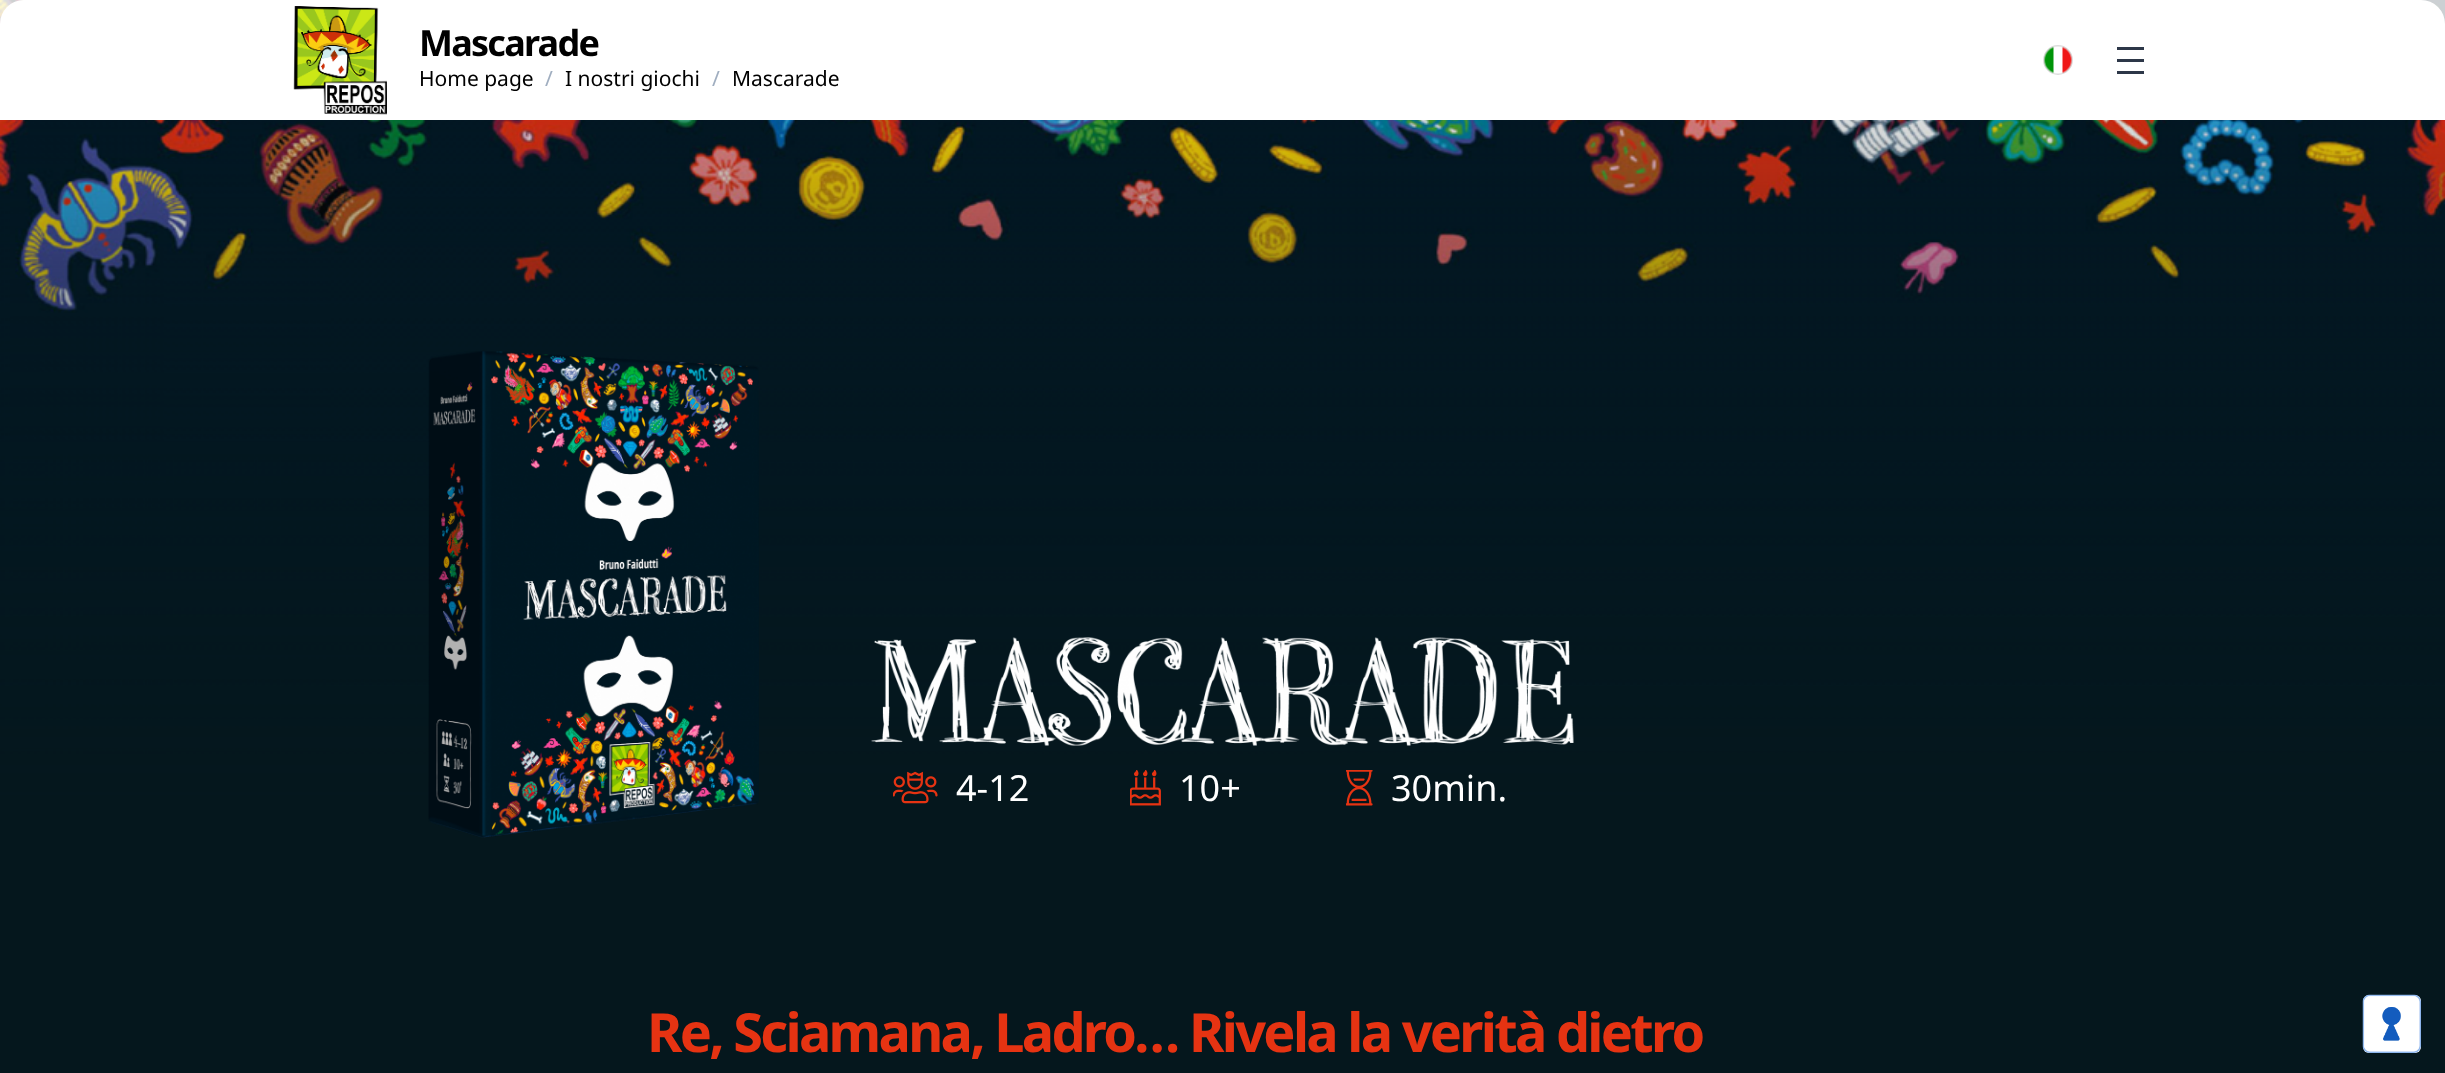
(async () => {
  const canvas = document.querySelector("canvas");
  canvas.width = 2445;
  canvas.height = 1073;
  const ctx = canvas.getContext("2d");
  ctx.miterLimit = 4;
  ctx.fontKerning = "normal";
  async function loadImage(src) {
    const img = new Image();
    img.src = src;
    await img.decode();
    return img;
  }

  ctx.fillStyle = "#05171d";
  ctx.fillRect(0, 0, 2445, 1073);
  ctx.drawImage(await loadImage("img/3.png"), 0, 0, 2445, 805);
  ctx.fillStyle = "rgba(255, 255, 255, 0.8)";
  ctx.fillRect(0, 0, 2445, 24);
  ctx.fillStyle = "#ffffff";
  ctx.beginPath();
  ctx.roundRect(0, 0, 2445, 120, [24, 24, 0, 0]);
  ctx.fill();
  ctx.drawImage(await loadImage("img/1.png"), 293, 6, 94, 109);
  ctx.beginPath();
  ctx.arc(2058, 60, 14, 0, Math.PI * 2);
  ctx.strokeStyle = "#dcdcdc";
  ctx.lineWidth = 2;
  ctx.stroke();
  ctx.drawImage(await loadImage("img/2.png"), 2044, 46, 28, 28);
  for (const [x, y, w, h, color] of [
    [2117, 59, 27, 3, "#2d3748"],
    [2117, 47, 27, 3, "#2d3748"],
    [2117, 71, 27, 3, "#2d3748"],
  ]) {
    ctx.fillStyle = color;
    ctx.fillRect(x, y, w, h);
  }
  ctx.drawImage(await loadImage("img/4.png"), 428, 351, 331, 487);
  ctx.drawImage(await loadImage("img/5.png"), 871, 637, 703, 109);
  ctx.drawImage(await loadImage("img/6.png"), 893, 771, 45, 33);
  ctx.drawImage(await loadImage("img/7.png"), 1130, 770, 31, 36);
  ctx.drawImage(await loadImage("img/8.png"), 1346, 770, 27, 36);
  ctx.fillStyle = "#ffffff";
  ctx.beginPath();
  ctx.roundRect(2363, 995, 58, 58, 6);
  ctx.fill();
  ctx.drawImage(await loadImage("img/9.png"), 2362, 994, 59, 59);
  ctx.letterSpacing = "-1.75px";
  ctx.font = "bold 36px Noto Sans";
  ctx.fillStyle = "#000000";
  ctx.fillText("Mascarade", 419, 56);
  ctx.letterSpacing = "0px";
  ctx.font = "21px Noto Sans";
  ctx.fillText("Home page", 419, 86);
  ctx.fillStyle = "#a0aec0";
  ctx.fillText("/", 545, 86);
  ctx.fillStyle = "#000000";
  ctx.fillText("I nostri giochi", 565, 86);
  ctx.fillStyle = "#a0aec0";
  ctx.fillText("/", 712, 86);
  ctx.fillStyle = "#000000";
  ctx.fillText("Mascarade", 732, 86);
  ctx.font = "36px Noto Sans";
  ctx.fillStyle = "#ffffff";
  for (const [text, x, y] of [
    ["4-12", 956, 801],
    ["10+", 1179, 801],
    ["30min.", 1391, 801],
  ]) {
    ctx.fillText(text, x, y);
  }
  ctx.letterSpacing = "-2.7px";
  ctx.font = "bold 54px Noto Sans";
  ctx.fillStyle = "#e63312";
  ctx.fillText("Re, Sciamana, Ladro… Rivela la verità dietro", 647, 1052);
})();
